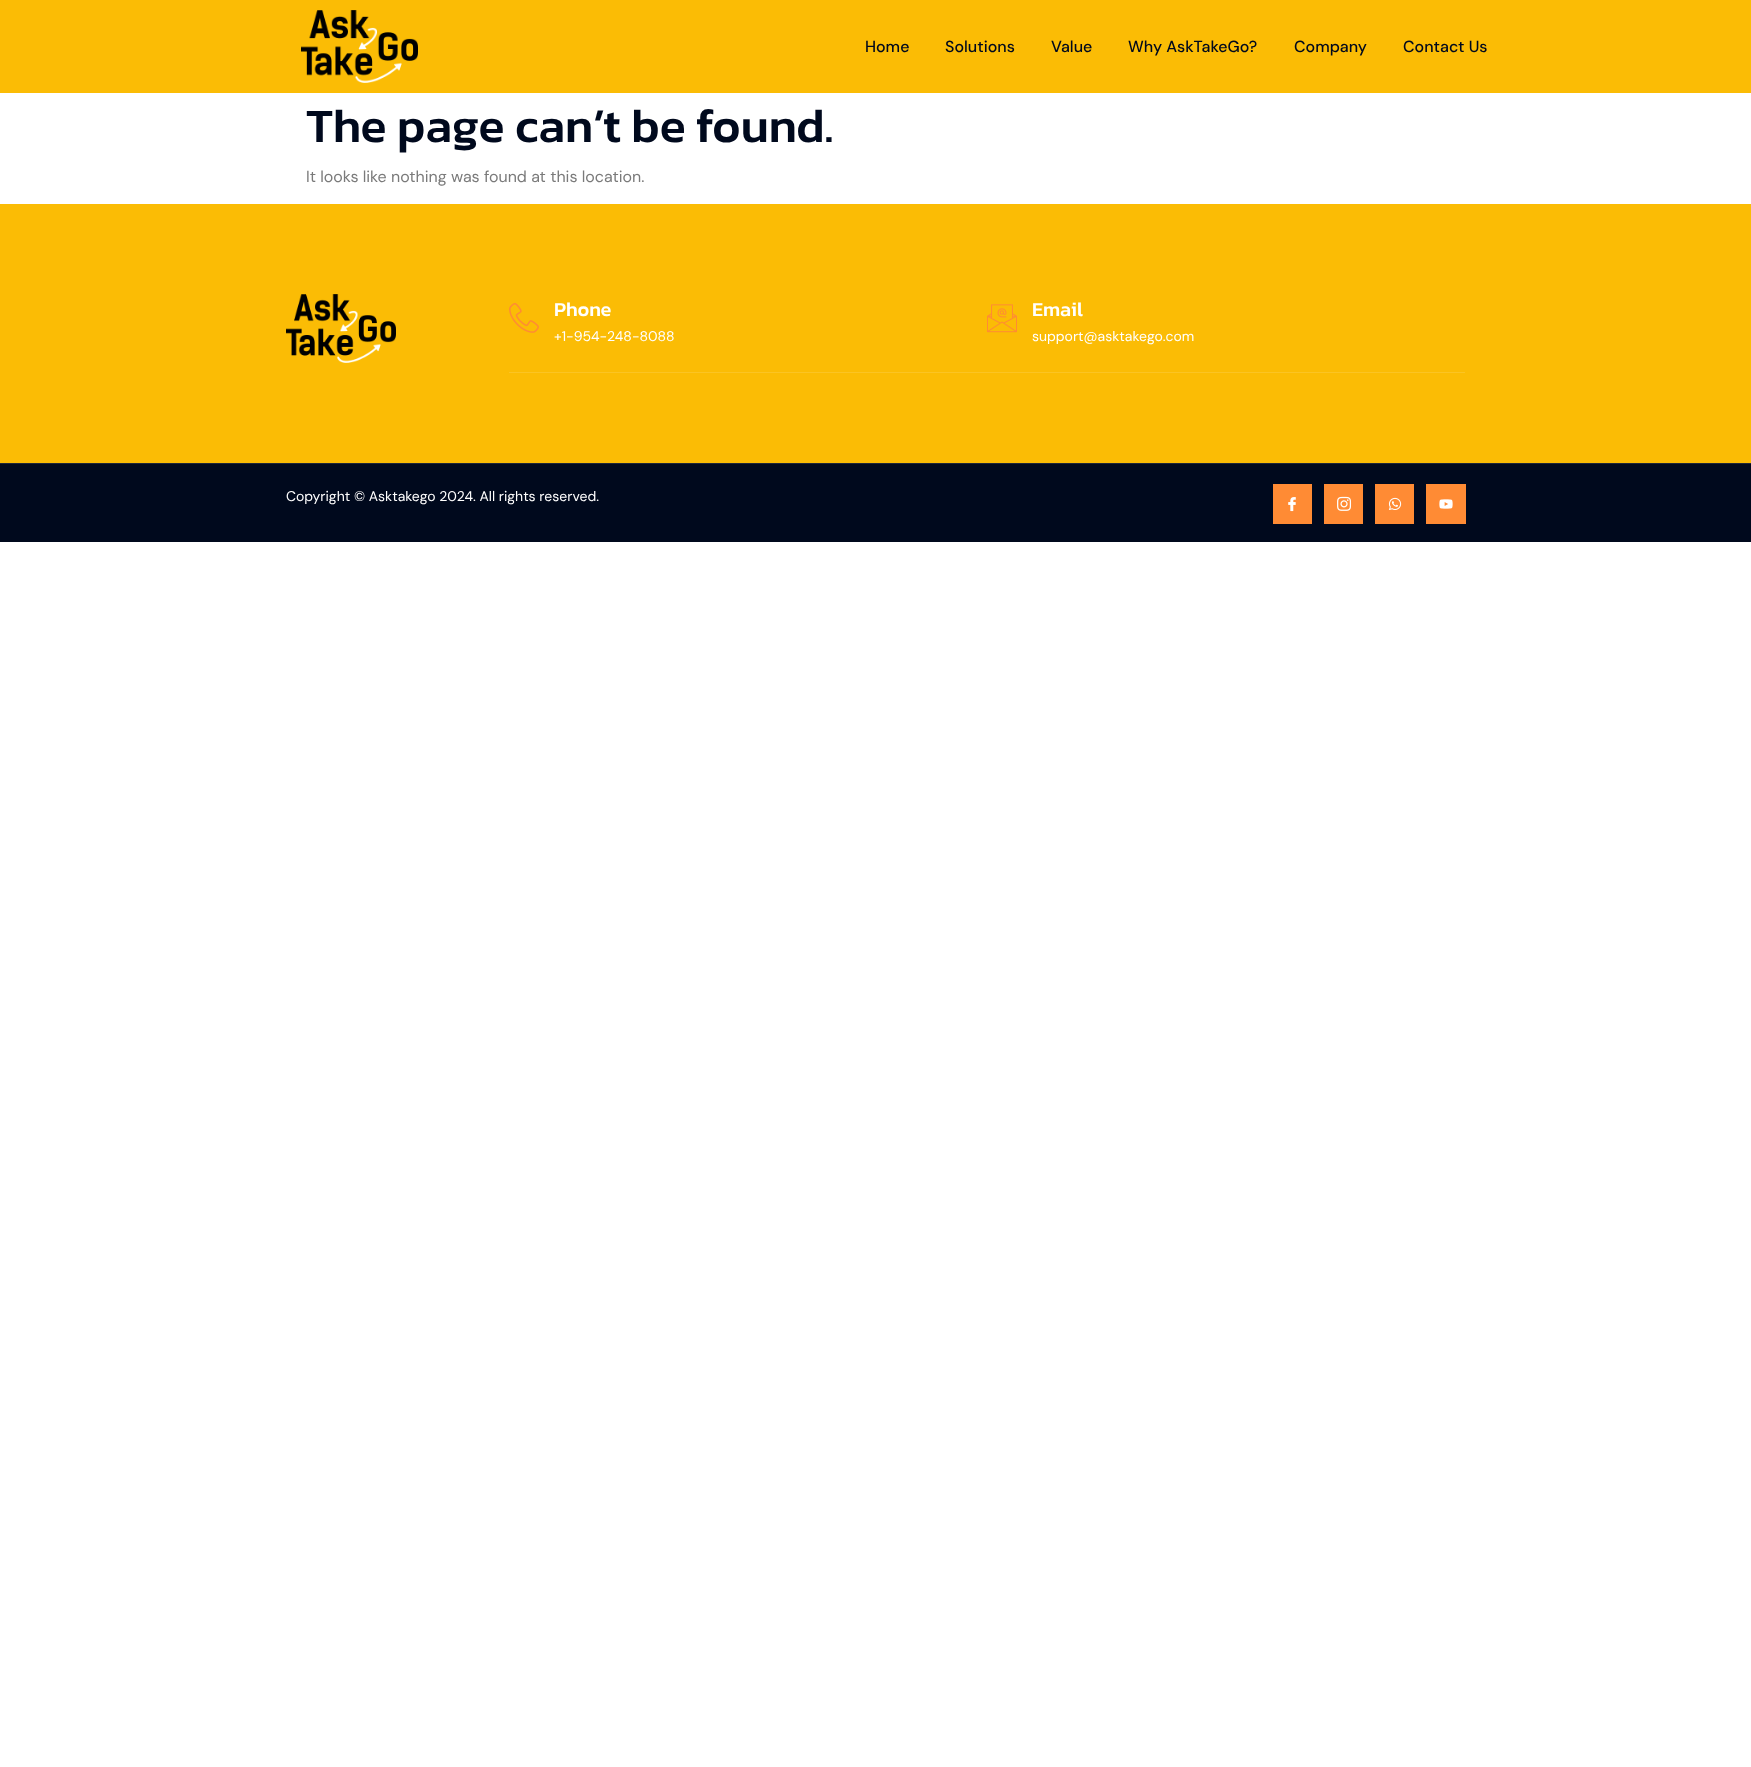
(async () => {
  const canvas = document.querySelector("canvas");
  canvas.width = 1751;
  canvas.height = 1767;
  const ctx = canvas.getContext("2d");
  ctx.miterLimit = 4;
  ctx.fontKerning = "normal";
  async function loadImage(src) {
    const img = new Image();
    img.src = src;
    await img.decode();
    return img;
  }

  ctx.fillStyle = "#ffffff";
  ctx.fillRect(0, 0, 1751, 1767);
  ctx.fillStyle = "#fbbc05";
  ctx.fillRect(0, 0, 1751, 93);
  ctx.drawImage(await loadImage("img/1.png"), 301, 10, 117, 73);
  ctx.fillRect(0, 204, 1751, 259);
  ctx.drawImage(await loadImage("img/2.png"), 286, 294, 110, 69);
  ctx.fillStyle = "#fbc423";
  ctx.fillRect(509, 372, 956, 1);
  ctx.drawImage(await loadImage("img/3.png"), 509, 303, 30, 30);
  ctx.drawImage(await loadImage("img/4.png"), 987, 304, 30, 29);
  for (const [x, y, w, h, color] of [
    [0, 464, 1751, 78, "#00091d"],
    [0, 463, 1751, 1, "#1f2738"],
    [1273, 484, 39, 40, "#ff8b34"],
  ]) {
    ctx.fillStyle = color;
    ctx.fillRect(x, y, w, h);
  }
  ctx.drawImage(await loadImage("img/5.png"), 1288, 497, 8, 15);
  ctx.fillRect(1324, 484, 39, 40);
  ctx.drawImage(await loadImage("img/6.png"), 1337, 496, 15, 15);
  ctx.fillRect(1375, 484, 39, 40);
  ctx.drawImage(await loadImage("img/7.png"), 1388, 497, 14, 13);
  ctx.fillRect(1426, 484, 40, 40);
  ctx.drawImage(await loadImage("img/8.png"), 1439, 499, 14, 10);
  ctx.font = "500 16px DM Sans";
  ctx.fillStyle = "#00091d";
  for (const [text, x, y] of [
    ["Home", 865, 52],
    ["Solutions", 945, 52],
    ["Value", 1051, 52],
    ["Why AskTakeGo?", 1128, 52],
    ["Company", 1294, 52],
    ["Contact Us", 1403, 52],
  ]) {
    ctx.fillText(text, x, y);
  }
  ctx.font = "500 48px Kanit";
  ctx.fillText("The page can’t be found.", 306, 142);
  ctx.font = "16px DM Sans";
  ctx.fillStyle = "#7a7a7a";
  ctx.fillText("It looks like nothing was found at this location.", 306, 182);
  ctx.font = "500 20px Kanit";
  ctx.fillStyle = "#ffffff";
  ctx.fillText("Phone", 554, 316);
  ctx.font = "14px DM Sans";
  ctx.fillText("+1-954-248-8088", 554, 341);
  ctx.font = "500 20px Kanit";
  ctx.fillText("Email", 1032, 316);
  ctx.font = "14px DM Sans";
  ctx.fillText("support@asktakego.com", 1032, 341);
  ctx.fillText("Copyright © Asktakego 2024. All rights reserved.", 286, 501);
})();
